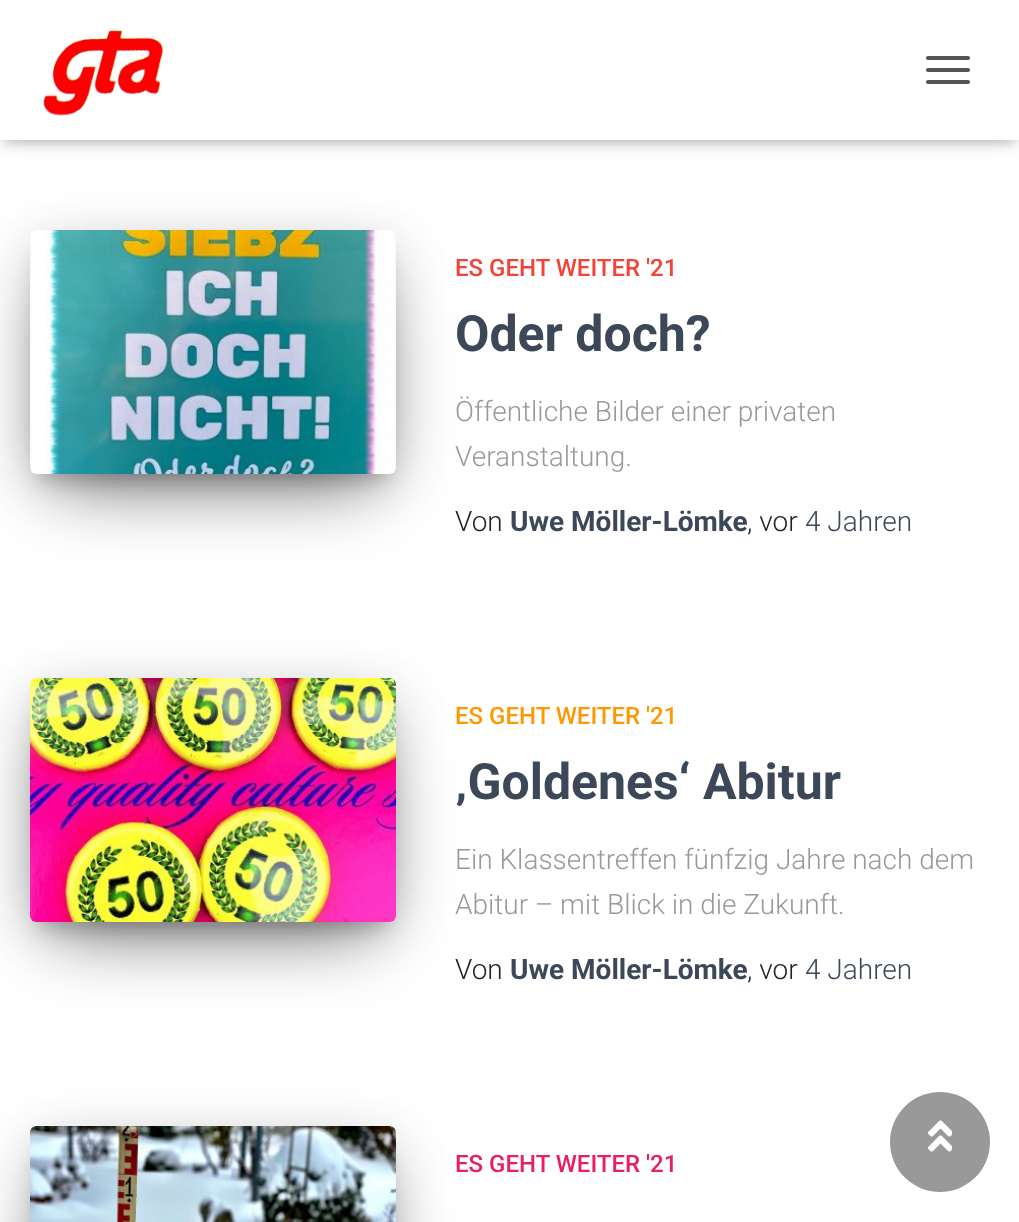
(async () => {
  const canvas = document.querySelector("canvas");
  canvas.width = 1019;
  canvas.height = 1222;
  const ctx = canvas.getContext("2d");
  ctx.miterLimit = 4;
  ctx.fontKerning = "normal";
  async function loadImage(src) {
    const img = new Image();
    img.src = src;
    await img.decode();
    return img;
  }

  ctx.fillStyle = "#ffffff";
  ctx.fillRect(0, 0, 1019, 1222);
  ctx.fillStyle = "rgba(0, 0, 0, 0.1)";
  ctx.filter = "blur(5px)";
  ctx.beginPath();
  ctx.rect(4, 12, 1012, 132);
  ctx.fill();
  ctx.filter = "none";
  ctx.fillStyle = "rgba(0, 0, 0, 0.12)";
  ctx.filter = "blur(10px)";
  ctx.beginPath();
  ctx.rect(0, 2, 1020, 140);
  ctx.fill();
  ctx.filter = "none";
  ctx.fillStyle = "rgba(0, 0, 0, 0.42)";
  ctx.filter = "blur(10px)";
  ctx.beginPath();
  ctx.rect(12, 14, 996, 116);
  ctx.fill();
  ctx.filter = "none";
  ctx.fillStyle = "#ffffff";
  ctx.fillRect(0, 0, 1019, 140);
  ctx.drawImage(await loadImage("img/1.png"), 43, 30, 121, 87);
  ctx.fillStyle = "#555555";
  ctx.beginPath();
  ctx.roundRect(926, 56, 44, 4, 2);
  ctx.fill();
  ctx.beginPath();
  ctx.roundRect(926, 68, 44, 4, 2);
  ctx.fill();
  ctx.beginPath();
  ctx.roundRect(926, 80, 44, 4, 2);
  ctx.fill();
  ctx.fillStyle = "rgba(0, 0, 0, 0.2)";
  ctx.filter = "blur(10px)";
  ctx.beginPath();
  ctx.rect(40, 256, 346, 224);
  ctx.fill();
  ctx.filter = "none";
  ctx.fillStyle = "rgba(0, 0, 0, 0.12)";
  ctx.filter = "blur(25px)";
  ctx.beginPath();
  ctx.roundRect(30, 238, 366, 244, 6);
  ctx.fill();
  ctx.filter = "none";
  ctx.fillStyle = "rgba(0, 0, 0, 0.56)";
  ctx.filter = "blur(38px)";
  ctx.beginPath();
  ctx.rect(54, 286, 318, 196);
  ctx.fill();
  ctx.filter = "none";
  ctx.drawImage(await loadImage("img/2.png"), 30, 230, 366, 244);
  ctx.fillStyle = "rgba(0, 0, 0, 0.2)";
  ctx.filter = "blur(10px)";
  ctx.beginPath();
  ctx.rect(40, 704, 346, 224);
  ctx.fill();
  ctx.filter = "none";
  ctx.fillStyle = "rgba(0, 0, 0, 0.12)";
  ctx.filter = "blur(25px)";
  ctx.beginPath();
  ctx.roundRect(30, 686, 366, 244, 6);
  ctx.fill();
  ctx.filter = "none";
  ctx.fillStyle = "rgba(0, 0, 0, 0.56)";
  ctx.filter = "blur(38px)";
  ctx.beginPath();
  ctx.rect(54, 734, 318, 196);
  ctx.fill();
  ctx.filter = "none";
  ctx.drawImage(await loadImage("img/3.png"), 30, 678, 366, 244);
  ctx.fillStyle = "rgba(0, 0, 0, 0.2)";
  ctx.filter = "blur(10px)";
  ctx.beginPath();
  ctx.rect(40, 1152, 346, 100);
  ctx.fill();
  ctx.filter = "none";
  ctx.fillStyle = "rgba(0, 0, 0, 0.12)";
  ctx.filter = "blur(25px)";
  ctx.beginPath();
  ctx.roundRect(30, 1134, 366, 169, 6);
  ctx.fill();
  ctx.filter = "none";
  ctx.fillStyle = "rgba(0, 0, 0, 0.56)";
  ctx.filter = "blur(38px)";
  ctx.beginPath();
  ctx.rect(54, 1182, 318, 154);
  ctx.fill();
  ctx.filter = "none";
  ctx.drawImage(await loadImage("img/4.png"), 30, 1126, 366, 96);
  ctx.fillStyle = "#999999";
  ctx.beginPath();
  ctx.arc(940, 1142, 50, 0, Math.PI * 2);
  ctx.fill();
  ctx.drawImage(await loadImage("img/5.png"), 928, 1120, 24, 32);
  ctx.font = "500 24px Roboto";
  ctx.fillStyle = "#f44336";
  ctx.fillText("ES GEHT WEITER '21", 455, 276);
  ctx.font = "bold 50px Roboto";
  ctx.fillStyle = "#3c4858";
  ctx.fillText("Oder doch?", 455, 351);
  ctx.font = "300 28px Roboto";
  ctx.fillStyle = "#999999";
  ctx.fillText("Öffentliche Bilder einer privaten", 455, 421);
  ctx.fillText("Veranstaltung.", 455, 466);
  ctx.fillStyle = "#212121";
  ctx.fillText("Von", 455, 531);
  ctx.font = "bold 28px Roboto";
  ctx.fillStyle = "#3c4858";
  ctx.fillText("Uwe Möller-Lömke", 510, 531);
  ctx.font = "300 28px Roboto";
  ctx.fillStyle = "#212121";
  ctx.fillText(", vor", 747, 531);
  ctx.fillStyle = "#3c4858";
  ctx.fillText("4 Jahren", 805, 531);
  ctx.font = "500 24px Roboto";
  ctx.fillStyle = "#ff9800";
  ctx.fillText("ES GEHT WEITER '21", 455, 724);
  ctx.font = "bold 50px Roboto";
  ctx.fillStyle = "#3c4858";
  ctx.fillText("‚Goldenes‘ Abitur", 455, 799);
  ctx.font = "300 28px Roboto";
  ctx.fillStyle = "#999999";
  ctx.fillText("Ein Klassentreffen fünfzig Jahre nach dem", 455, 869);
  ctx.fillText("Abitur – mit Blick in die Zukunft.", 455, 914);
  ctx.fillStyle = "#212121";
  ctx.fillText("Von", 455, 979);
  ctx.font = "bold 28px Roboto";
  ctx.fillStyle = "#3c4858";
  ctx.fillText("Uwe Möller-Lömke", 510, 979);
  ctx.font = "300 28px Roboto";
  ctx.fillStyle = "#212121";
  ctx.fillText(", vor", 747, 979);
  ctx.fillStyle = "#3c4858";
  ctx.fillText("4 Jahren", 805, 979);
  ctx.font = "500 24px Roboto";
  ctx.fillStyle = "#e91e63";
  ctx.fillText("ES GEHT WEITER '21", 455, 1172);
})();
